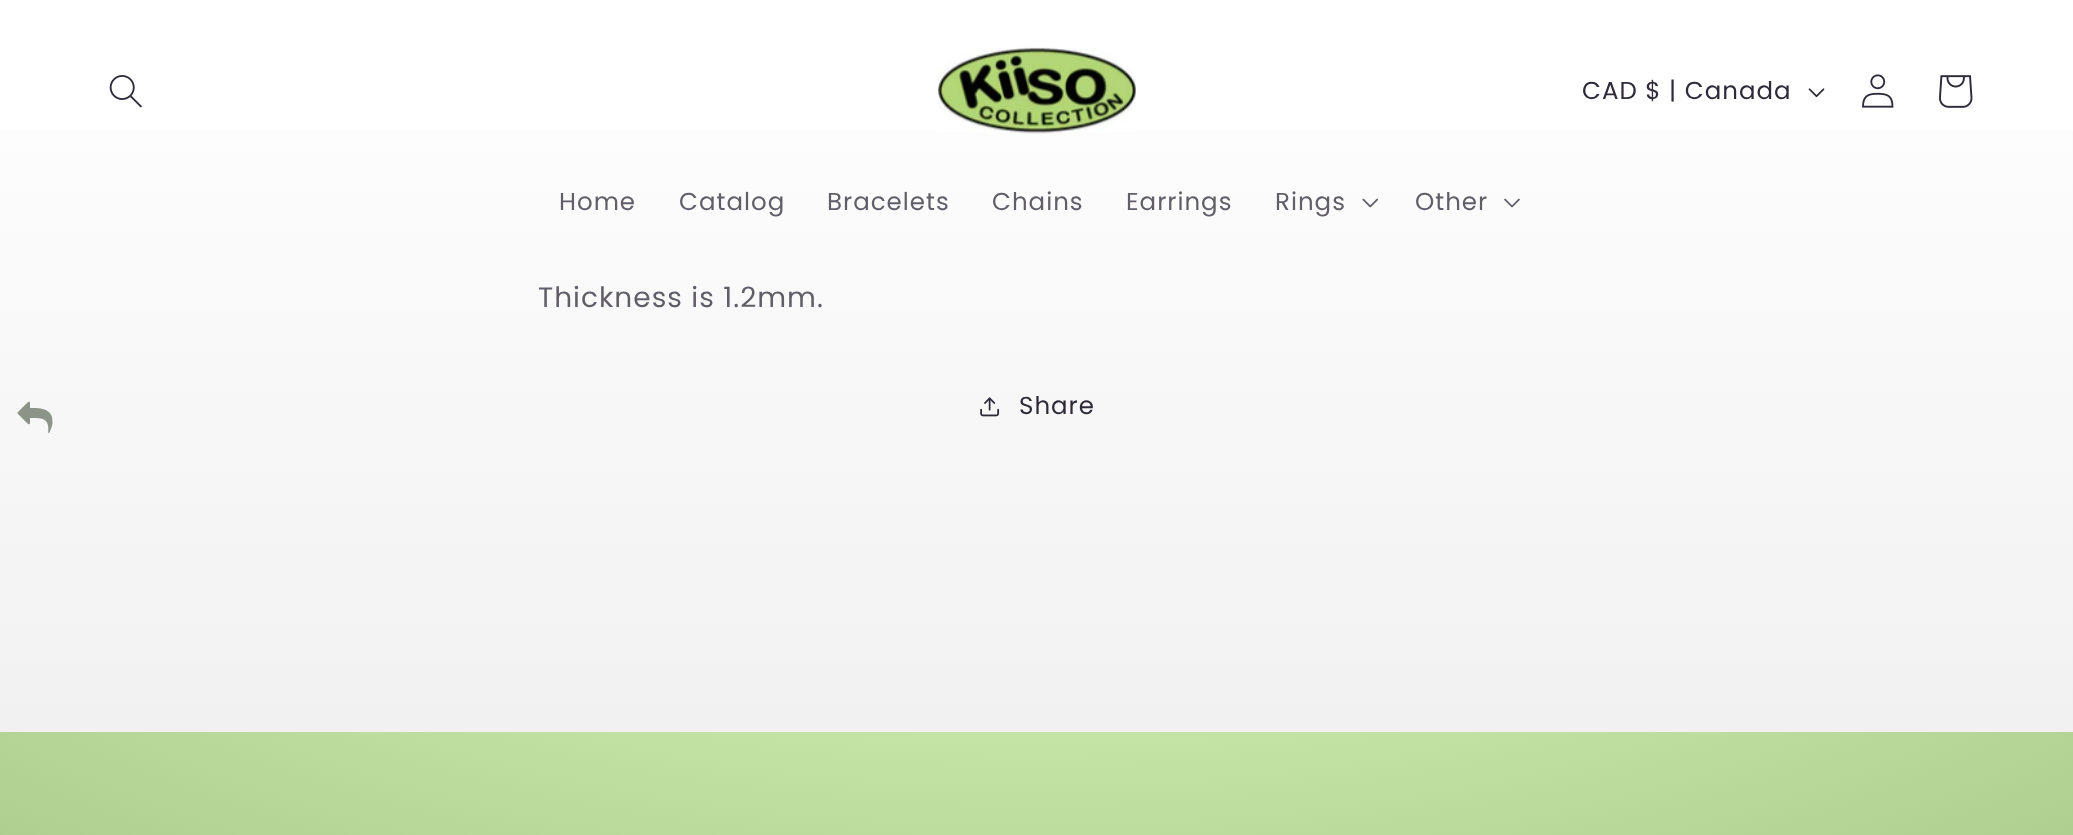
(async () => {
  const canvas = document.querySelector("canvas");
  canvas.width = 2073;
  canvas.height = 835;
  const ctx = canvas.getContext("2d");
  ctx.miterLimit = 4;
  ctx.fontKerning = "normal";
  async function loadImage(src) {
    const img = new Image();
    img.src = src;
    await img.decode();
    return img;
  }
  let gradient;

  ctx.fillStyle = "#ffffff";
  ctx.fillRect(0, 0, 2073, 835);
  gradient = ctx.createLinearGradient(1037, 0, 1037, 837);
  gradient.addColorStop(0, "#ffffff");
  gradient.addColorStop(1, "#efefef");
  ctx.fillStyle = gradient;
  ctx.fillRect(0, 273, 2073, 459);
  ctx.fillRect(0, 131, 2073, 142);
  ctx.drawImage(await loadImage("img/1.png"), 109, 75, 33, 33);
  ctx.drawImage(await loadImage("img/2.png"), 938, 47, 198, 87);
  ctx.drawImage(await loadImage("img/3.png"), 1808, 88, 17, 10);
  ctx.drawImage(await loadImage("img/4.png"), 1862, 74, 32, 34);
  ctx.drawImage(await loadImage("img/5.png"), 1939, 75, 34, 33);
  ctx.drawImage(await loadImage("img/6.png"), 1362, 198, 17, 10);
  ctx.drawImage(await loadImage("img/7.png"), 1504, 198, 16, 10);
  ctx.drawImage(await loadImage("img/8.png"), 17, 401, 36, 32);
  ctx.drawImage(await loadImage("img/9.png"), 980, 397, 20, 20);
  gradient = ctx.createRadialGradient(1037, 1036.87, 0, 1037, 1036.87, 1466);
  gradient.addColorStop(0.09, "#e1f4d1");
  gradient.addColorStop(0.47, "#c6e7a8");
  gradient.addColorStop(1, "#aecf8f");
  ctx.fillStyle = gradient;
  ctx.beginPath();
  ctx.rect(0, 732, 2073, 103);
  ctx.save();
  ctx.clip();
  ctx.scale(1, 591 / 1466);
  ctx.fillRect(0, 0, 2073, 2072);
  ctx.restore();
  ctx.letterSpacing = "1px";
  ctx.font = "24.5px Poppins";
  ctx.fillStyle = "#2e2a39";
  ctx.fillText("CAD $ | Canada", 1582, 99);
  ctx.fillStyle = "#615e69";
  for (const [text, x, y] of [
    ["Home", 559, 210],
    ["Catalog", 679, 210],
    ["Bracelets", 827, 210],
    ["Chains", 992, 210],
    ["Earrings", 1126, 210],
    ["Rings", 1275, 210],
    ["Other", 1415, 210],
  ]) {
    ctx.fillText(text, x, y);
  }
  ctx.font = "28px Poppins";
  ctx.fillText("Thickness is 1.2mm.", 538, 307);
  ctx.font = "24.5px Poppins";
  ctx.fillStyle = "#2e2a39";
  ctx.fillText("Share", 1019, 414);
})();
